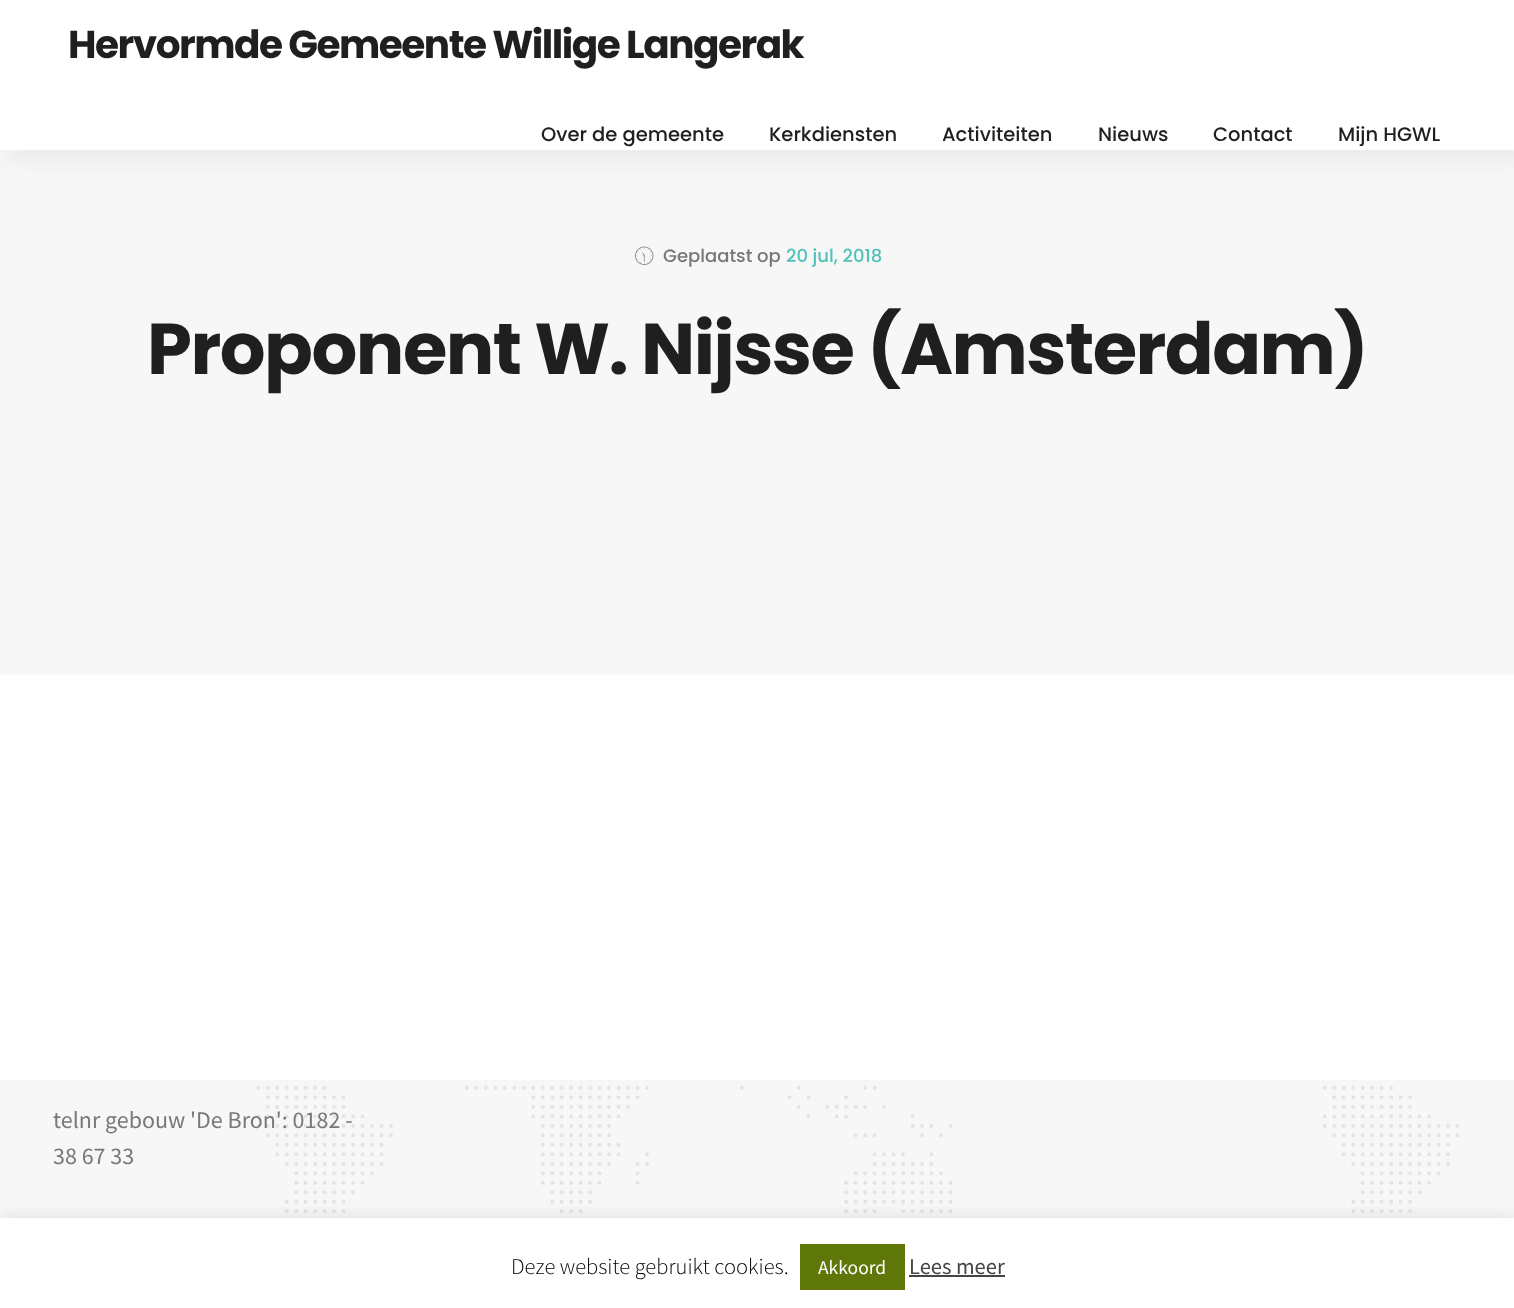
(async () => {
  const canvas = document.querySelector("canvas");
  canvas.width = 1514;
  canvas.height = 1308;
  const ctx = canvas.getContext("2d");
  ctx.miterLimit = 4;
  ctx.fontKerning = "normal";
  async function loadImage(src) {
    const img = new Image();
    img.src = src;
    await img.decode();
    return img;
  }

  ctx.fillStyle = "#f7f7f7";
  ctx.fillRect(0, 0, 1514, 1308);
  ctx.fillStyle = "rgba(31, 31, 31, 0.07)";
  ctx.filter = "blur(11px)";
  ctx.beginPath();
  ctx.rect(8, 8, 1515, 150);
  ctx.fill();
  ctx.filter = "none";
  ctx.fillStyle = "#ffffff";
  ctx.fillRect(0, 0, 1514, 150);
  ctx.fillStyle = "rgba(255, 255, 255, 0.2)";
  ctx.fillRect(0, 150, 1514, 1);
  ctx.drawImage(await loadImage("img/1.png"), 635, 246, 19, 19);
  ctx.fillStyle = "#ffffff";
  ctx.fillRect(0, 675, 1514, 405);
  ctx.drawImage(await loadImage("img/2.png"), 248, 1080, 1212, 133);
  ctx.fillStyle = "rgba(172, 171, 171, 0.3)";
  ctx.filter = "blur(7.5px)";
  ctx.beginPath();
  ctx.rect(0, 1217, 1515, 90);
  ctx.fill();
  ctx.filter = "none";
  for (const [x, y, w, h, color] of [
    [0, 1218, 1514, 90, "#ffffff"],
    [800, 1244, 105, 46, "#5e7708"],
    [909, 1275, 96, 2, "#444444"],
  ]) {
    ctx.fillStyle = color;
    ctx.fillRect(x, y, w, h);
  }
  ctx.letterSpacing = "-1.5px";
  ctx.font = "bold 39px Poppins";
  ctx.fillStyle = "#1f1f1f";
  ctx.fillText("Hervormde Gemeente Willige Langerak", 68, 58);
  ctx.letterSpacing = "0px";
  ctx.font = "500 19.5px Poppins";
  for (const [text, x, y] of [
    ["Over de gemeente", 541, 141],
    ["Kerkdiensten", 769, 141],
    ["Activiteiten", 942, 141],
    ["Nieuws", 1098, 141],
    ["Contact", 1213, 141],
    ["Mijn HGWL", 1338, 141],
  ]) {
    ctx.fillText(text, x, y);
  }
  ctx.font = "500 18px Poppins";
  ctx.fillStyle = "#787878";
  ctx.fillText("Geplaatst op", 663, 262);
  ctx.fillStyle = "#4fc2b8";
  ctx.fillText("20 jul, 2018", 786, 262);
  ctx.letterSpacing = "-1.5px";
  ctx.font = "bold 72px Poppins";
  ctx.fillStyle = "#1f1f1f";
  ctx.fillText("Proponent W. Nijsse (Amsterdam)", 147, 374);
  ctx.letterSpacing = "0px";
  ctx.font = "24px Source Sans Pro";
  ctx.fillStyle = "#787878";
  ctx.fillText("telnr gebouw 'De Bron': 0182 -", 53, 1128);
  ctx.fillText("38 67 33", 53, 1164);
  ctx.font = "300 22.5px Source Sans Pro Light";
  ctx.fillStyle = "#000000";
  ctx.fillText("Deze website gebruikt cookies.", 511, 1274);
  ctx.font = "19.5px Source Sans Pro";
  ctx.fillStyle = "#ffffff";
  ctx.fillText("Akkoord", 818, 1274);
  ctx.font = "22.5px Source Sans Pro";
  ctx.fillStyle = "#444444";
  ctx.fillText("Lees meer", 909, 1274);
})();
